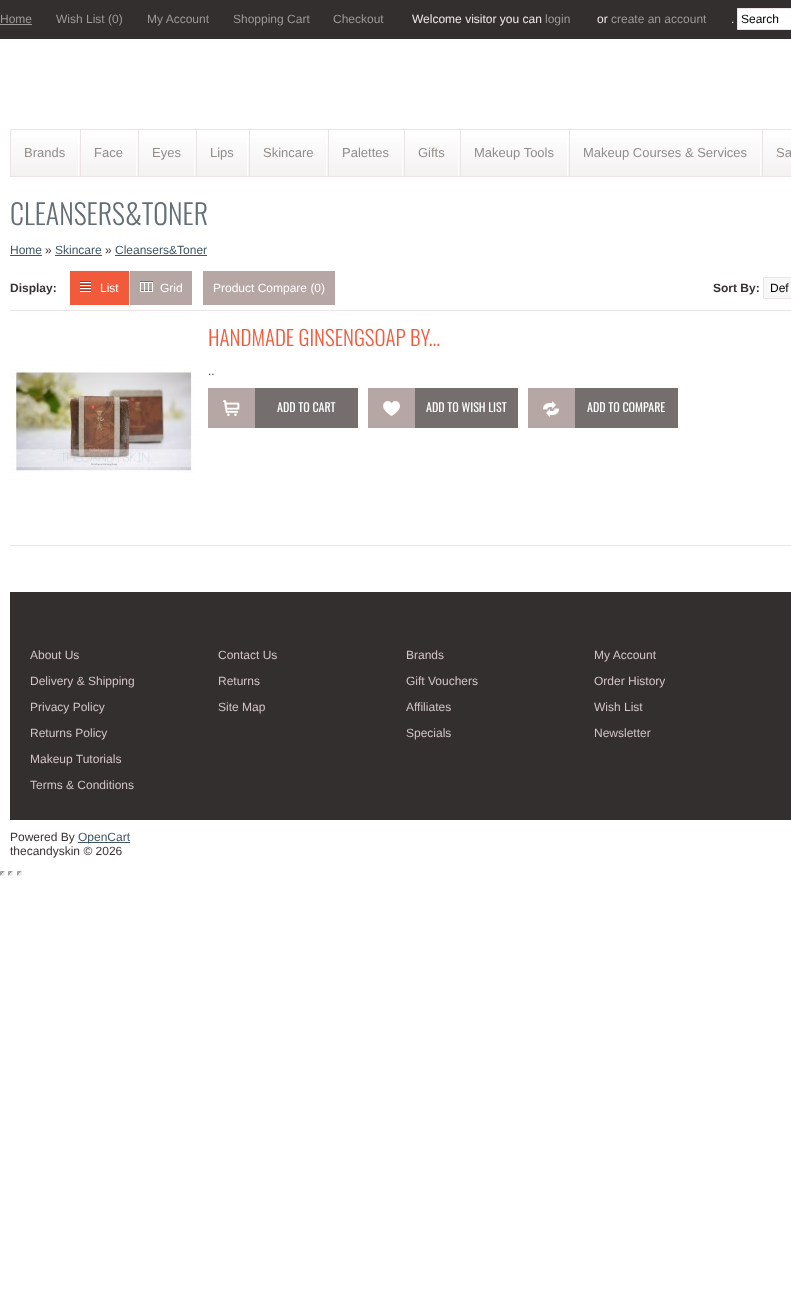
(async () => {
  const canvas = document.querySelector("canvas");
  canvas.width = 791;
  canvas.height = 1313;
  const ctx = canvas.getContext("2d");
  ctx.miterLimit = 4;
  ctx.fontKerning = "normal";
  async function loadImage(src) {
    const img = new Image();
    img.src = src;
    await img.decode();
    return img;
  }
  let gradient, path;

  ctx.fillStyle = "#ffffff";
  ctx.fillRect(0, 0, 791, 1313);
  ctx.fillStyle = "#332f2e";
  ctx.fillRect(0, 0, 791, 39);
  ctx.fillStyle = "#9e9999";
  ctx.fillRect(0, 24, 32, 1);
  ctx.fillStyle = "#ffffff";
  ctx.beginPath();
  ctx.rect(737.5, 8.5, 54, 21);
  ctx.fill();
  ctx.strokeStyle = "#eae5e4";
  ctx.stroke();
  gradient = ctx.createLinearGradient(500, 130, 500, 176);
  gradient.addColorStop(0, "#ffffff");
  gradient.addColorStop(1, "#f4f1f1");
  ctx.fillStyle = gradient;
  ctx.fillRect(11, 138, 780, 38);
  ctx.strokeRect(10.5, 129.5, 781, 47);
  for (const [x, y, w, h, color] of [
    [80, 130, 1, 46, "#eae5e4"],
    [78, 130, 1, 46, "#ffffff"],
    [138, 130, 1, 46, "#eae5e4"],
    [136, 130, 1, 46, "#ffffff"],
    [196, 130, 1, 46, "#eae5e4"],
    [194, 130, 1, 46, "#ffffff"],
    [249, 130, 1, 46, "#eae5e4"],
    [247, 130, 1, 46, "#ffffff"],
    [328, 130, 1, 46, "#eae5e4"],
    [326, 130, 1, 46, "#ffffff"],
    [404, 130, 1, 46, "#eae5e4"],
    [402, 130, 1, 46, "#ffffff"],
    [460, 130, 1, 46, "#eae5e4"],
    [458, 130, 1, 46, "#ffffff"],
    [569, 130, 1, 46, "#eae5e4"],
    [567, 130, 1, 46, "#ffffff"],
    [762, 130, 1, 46, "#eae5e4"],
    [760, 130, 1, 46, "#ffffff"],
    [10, 255, 32, 1, "#3f5563"],
    [55, 255, 47, 1, "#3f5563"],
    [115, 255, 92, 1, "#3f5563"],
    [10, 310, 781, 1, "#eae5e4"],
    [70, 271, 59, 34, "#f15a3b"],
  ]) {
    ctx.fillStyle = color;
    ctx.fillRect(x, y, w, h);
  }
  ctx.drawImage(await loadImage("img/1.png"), 80, 281, 11, 11);
  ctx.fillStyle = "#b6a7a4";
  ctx.fillRect(130, 271, 62, 34);
  ctx.drawImage(await loadImage("img/2.png"), 140, 281, 13, 11);
  ctx.fillRect(203, 271, 132, 34);
  ctx.fillStyle = "#f8f8f8";
  ctx.beginPath();
  ctx.rect(763.5, 277.5, 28, 21);
  ctx.fill();
  ctx.stroke();
  ctx.drawImage(await loadImage("img/3.png"), 10, 321, 188, 204);
  ctx.fillStyle = "#746e6e";
  ctx.fillRect(255, 388, 103, 40);
  ctx.fillStyle = "#b6a7a4";
  ctx.fillRect(208, 388, 47, 40);
  ctx.drawImage(await loadImage("img/4.png"), 223, 400, 17, 16);
  ctx.fillStyle = "#746e6e";
  ctx.fillRect(415, 388, 103, 40);
  ctx.fillStyle = "#b6a7a4";
  ctx.fillRect(368, 388, 47, 40);
  ctx.drawImage(await loadImage("img/5.png"), 383, 401, 17, 15);
  ctx.fillStyle = "#746e6e";
  ctx.fillRect(575, 388, 103, 40);
  ctx.fillStyle = "#b6a7a4";
  ctx.fillRect(528, 388, 47, 40);
  ctx.drawImage(await loadImage("img/6.png"), 543, 401, 16, 16);
  for (const [x, y, w, h, color] of [
    [10, 545, 781, 1, "#eae5e4"],
    [10, 592, 781, 228, "#332f2e"],
    [78, 842, 52, 1, "#3f5563"],
  ]) {
    ctx.fillStyle = color;
    ctx.fillRect(x, y, w, h);
  }
  ctx.fillStyle = "#9f9f9f";
  path = new Path2D("M0 871H5L3 873H2Z");
  ctx.fill(path);
  ctx.fillStyle = "#eeeeee";
  path = new Path2D("M5 871V876L3 874V873Z");
  ctx.fill(path);
  path = new Path2D("M5 876H0L2 874H3Z");
  ctx.fill(path);
  ctx.fillStyle = "#9f9f9f";
  path = new Path2D("M0 876V871L2 873V874ZM8 871H13L11 873H10Z");
  ctx.fill(path);
  ctx.fillStyle = "#eeeeee";
  path = new Path2D("M13 871V876L11 874V873Z");
  ctx.fill(path);
  path = new Path2D("M13 876H8L10 874H11Z");
  ctx.fill(path);
  ctx.fillStyle = "#9f9f9f";
  path = new Path2D("M8 876V871L10 873V874ZM17 871H22L20 873H19Z");
  ctx.fill(path);
  ctx.fillStyle = "#eeeeee";
  path = new Path2D("M22 871V876L20 874V873Z");
  ctx.fill(path);
  path = new Path2D("M22 876H17L19 874H20Z");
  ctx.fill(path);
  ctx.fillStyle = "#9f9f9f";
  path = new Path2D("M17 876V871L19 873V874Z");
  ctx.fill(path);
  ctx.font = "12px Liberation Sans";
  ctx.fillStyle = "#9e9999";
  for (const [text, x, y] of [
    ["Home", 0, 23],
    ["Wish List (0)", 56, 23],
    ["My Account", 147, 23],
    ["Shopping Cart", 233, 23],
    ["Checkout", 333, 23],
  ]) {
    ctx.fillText(text, x, y);
  }
  ctx.fillStyle = "#f0e7e7";
  ctx.fillText("Welcome visitor you can", 412, 23);
  ctx.fillStyle = "#9e9999";
  ctx.fillText("login", 545, 23);
  ctx.fillStyle = "#f0e7e7";
  ctx.fillText("or", 597, 23);
  ctx.fillStyle = "#9e9999";
  ctx.fillText("create an account", 611, 23);
  ctx.fillStyle = "#f0e7e7";
  ctx.fillText(".", 731, 23);
  ctx.fillStyle = "#000000";
  ctx.fillText("Search", 741, 23);
  ctx.font = "13px Liberation Sans";
  ctx.fillStyle = "#918d8b";
  for (const [text, x, y] of [
    ["Brands", 24, 157],
    ["Face", 94, 157],
    ["Eyes", 152, 157],
    ["Lips", 210, 157],
    ["Skincare", 263, 157],
    ["Palettes", 342, 157],
    ["Gifts", 418, 157],
    ["Makeup Tools", 474, 157],
    ["Makeup Courses & Services", 583, 157],
    ["Sa", 776, 157],
  ]) {
    ctx.fillText(text, x, y);
  }
  ctx.font = "300 28px Oswald";
  ctx.fillStyle = "#636e75";
  ctx.fillText("CLEANSERS&TONER", 10, 225);
  ctx.font = "12px Liberation Sans";
  ctx.fillStyle = "#3f5563";
  ctx.fillText("Home", 10, 254);
  ctx.fillStyle = "#393232";
  ctx.fillText("»", 45, 254);
  ctx.fillStyle = "#3f5563";
  ctx.fillText("Skincare", 55, 254);
  ctx.fillStyle = "#393232";
  ctx.fillText("»", 105, 254);
  ctx.fillStyle = "#3f5563";
  ctx.fillText("Cleansers&Toner", 115, 254);
  ctx.font = "bold 12px Liberation Sans";
  ctx.fillStyle = "#393232";
  ctx.fillText("Display:", 10, 292);
  ctx.font = "12px Liberation Sans";
  ctx.fillStyle = "#ffffff";
  for (const [text, x, y] of [
    ["List", 100, 292],
    ["Grid", 160, 292],
    ["Product Compare (0)", 213, 292],
  ]) {
    ctx.fillText(text, x, y);
  }
  ctx.font = "bold 12px Liberation Sans";
  ctx.fillStyle = "#393232";
  ctx.fillText("Sort By:", 713, 292);
  ctx.font = "12px Liberation Sans";
  ctx.fillStyle = "#000000";
  ctx.fillText("Def", 770, 292);
  ctx.font = "300 21px Oswald";
  ctx.fillStyle = "#f15a3b";
  ctx.fillText("HANDMADE GINSENGSOAP BY...", 208, 346);
  ctx.font = "12px Liberation Sans";
  ctx.fillStyle = "#393232";
  ctx.fillText("..", 208, 375);
  ctx.font = "12px Oswald";
  ctx.fillStyle = "#ffffff";
  for (const [text, x, y] of [
    ["ADD TO CART", 277, 412],
    ["ADD TO WISH LIST", 426, 412],
    ["ADD TO COMPARE", 587, 412],
  ]) {
    ctx.fillText(text, x, y);
  }
  ctx.font = "12px Liberation Sans";
  ctx.fillStyle = "#d1c5c5";
  for (const [text, x, y] of [
    ["About Us", 30, 659],
    ["Delivery & Shipping", 30, 685],
    ["Privacy Policy", 30, 711],
    ["Returns Policy", 30, 737],
    ["Makeup Tutorials", 30, 763],
    ["Terms & Conditions", 30, 789],
    ["Contact Us", 218, 659],
    ["Returns", 218, 685],
    ["Site Map", 218, 711],
    ["Brands", 406, 659],
    ["Gift Vouchers", 406, 685],
    ["Affiliates", 406, 711],
    ["Specials", 406, 737],
    ["My Account", 594, 659],
    ["Order History", 594, 685],
    ["Wish List", 594, 711],
    ["Newsletter", 594, 737],
  ]) {
    ctx.fillText(text, x, y);
  }
  ctx.fillStyle = "#393232";
  ctx.fillText("Powered By", 10, 841);
  ctx.fillStyle = "#3f5563";
  ctx.fillText("OpenCart", 78, 841);
  ctx.fillStyle = "#393232";
  ctx.fillText("thecandyskin © 2026", 10, 855);
})();
